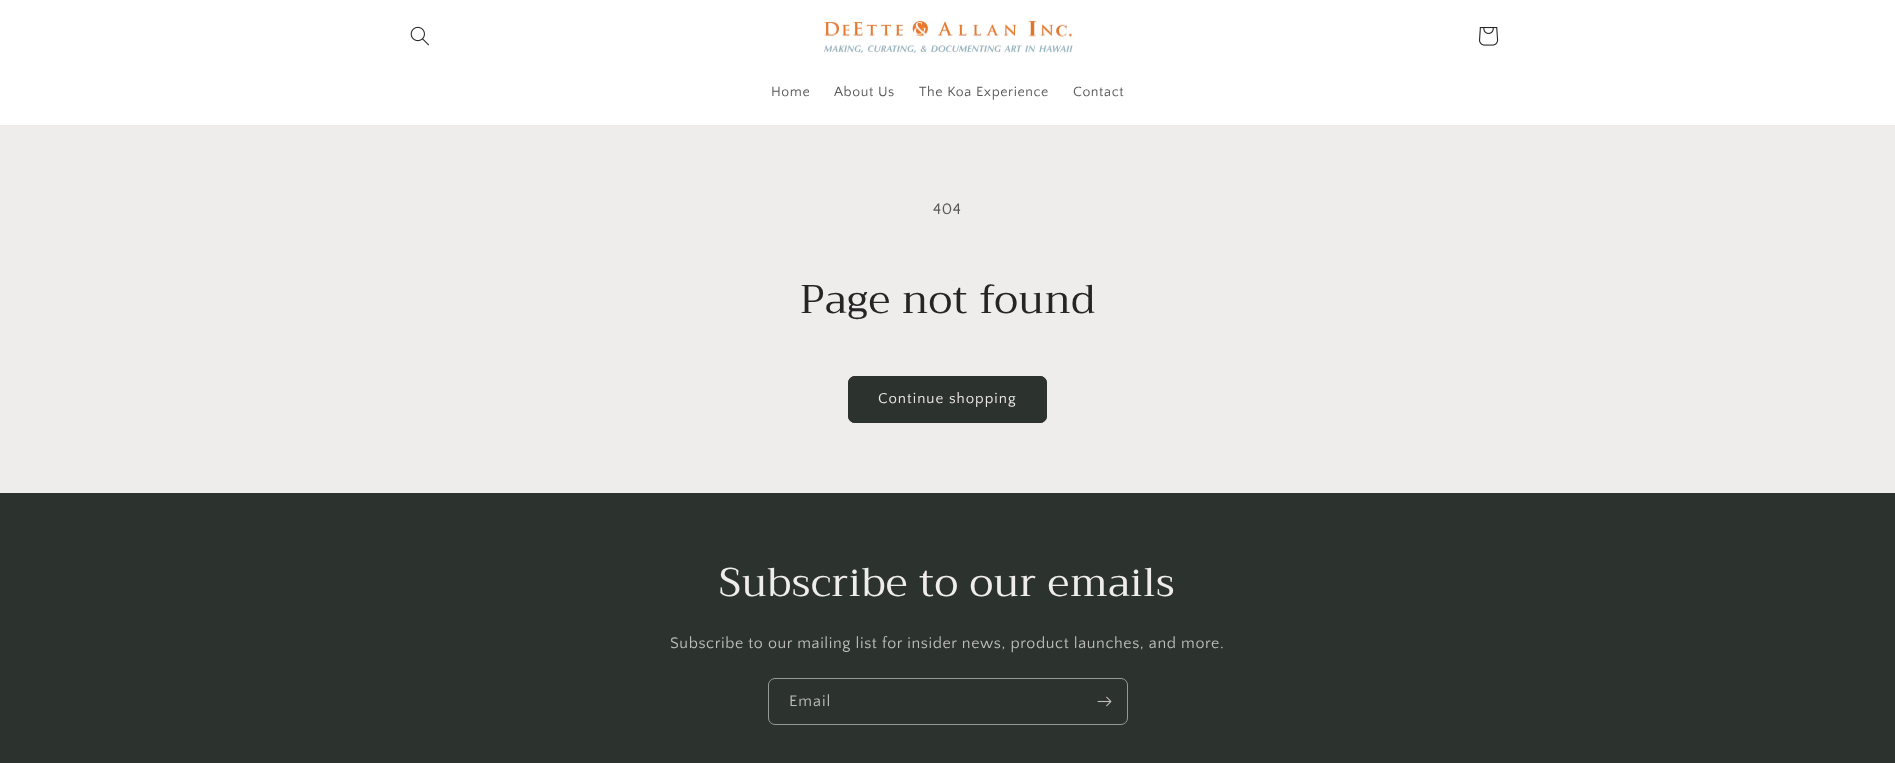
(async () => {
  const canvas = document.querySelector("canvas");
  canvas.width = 1895;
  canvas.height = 763;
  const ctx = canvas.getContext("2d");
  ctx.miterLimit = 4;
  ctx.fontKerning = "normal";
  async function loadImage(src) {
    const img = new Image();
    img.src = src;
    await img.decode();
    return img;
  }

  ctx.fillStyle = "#efecec";
  ctx.fillRect(0, 0, 1895, 763);
  ctx.fillStyle = "#ffffff";
  ctx.fillRect(0, 0, 1895, 125);
  ctx.drawImage(await loadImage("img/1.png"), 410, 26, 19, 20);
  ctx.drawImage(await loadImage("img/2.png"), 823, 20, 250, 33);
  ctx.drawImage(await loadImage("img/3.png"), 1479, 27, 20, 19);
  ctx.fillStyle = "#2c332f";
  ctx.beginPath();
  ctx.roundRect(848, 376, 199, 47, 7);
  ctx.fill();
  ctx.beginPath();
  ctx.roundRect(848.5, 376.5, 198, 46, 6.5);
  ctx.strokeStyle = "#2c332f";
  ctx.stroke();
  ctx.fillRect(0, 493, 1895, 270);
  ctx.beginPath();
  ctx.roundRect(768.5, 678.5, 359, 46, 6.5);
  ctx.strokeStyle = "#979997";
  ctx.stroke();
  ctx.drawImage(await loadImage("img/4.png"), 1097, 696, 15, 11);
  ctx.letterSpacing = "0.6px";
  ctx.font = "14px Quattrocento Sans";
  ctx.fillStyle = "#585757";
  for (const [text, x, y] of [
    ["Home", 771, 96],
    ["About Us", 834, 96],
    ["The Koa Experience", 919, 96],
    ["Contact", 1073, 96],
  ]) {
    ctx.fillText(text, x, y);
  }
  ctx.font = "16px Quattrocento Sans";
  ctx.fillText("404", 933, 214);
  ctx.font = "40px Trirong";
  ctx.fillStyle = "#252525";
  ctx.fillText("Page not found", 800, 313);
  ctx.letterSpacing = "1px";
  ctx.font = "15px Quattrocento Sans";
  ctx.fillStyle = "#efecec";
  ctx.fillText("Continue shopping", 878, 403);
  ctx.letterSpacing = "0.6px";
  ctx.font = "40px Trirong";
  ctx.fillText("Subscribe to our emails", 719, 596);
  ctx.font = "16px Quattrocento Sans";
  ctx.fillStyle = "#bebebd";
  ctx.fillText("Subscribe to our mailing list for insider news, product launches, and more.", 670, 648);
  ctx.letterSpacing = "1px";
  ctx.fillText("Email", 789, 706);
})();
